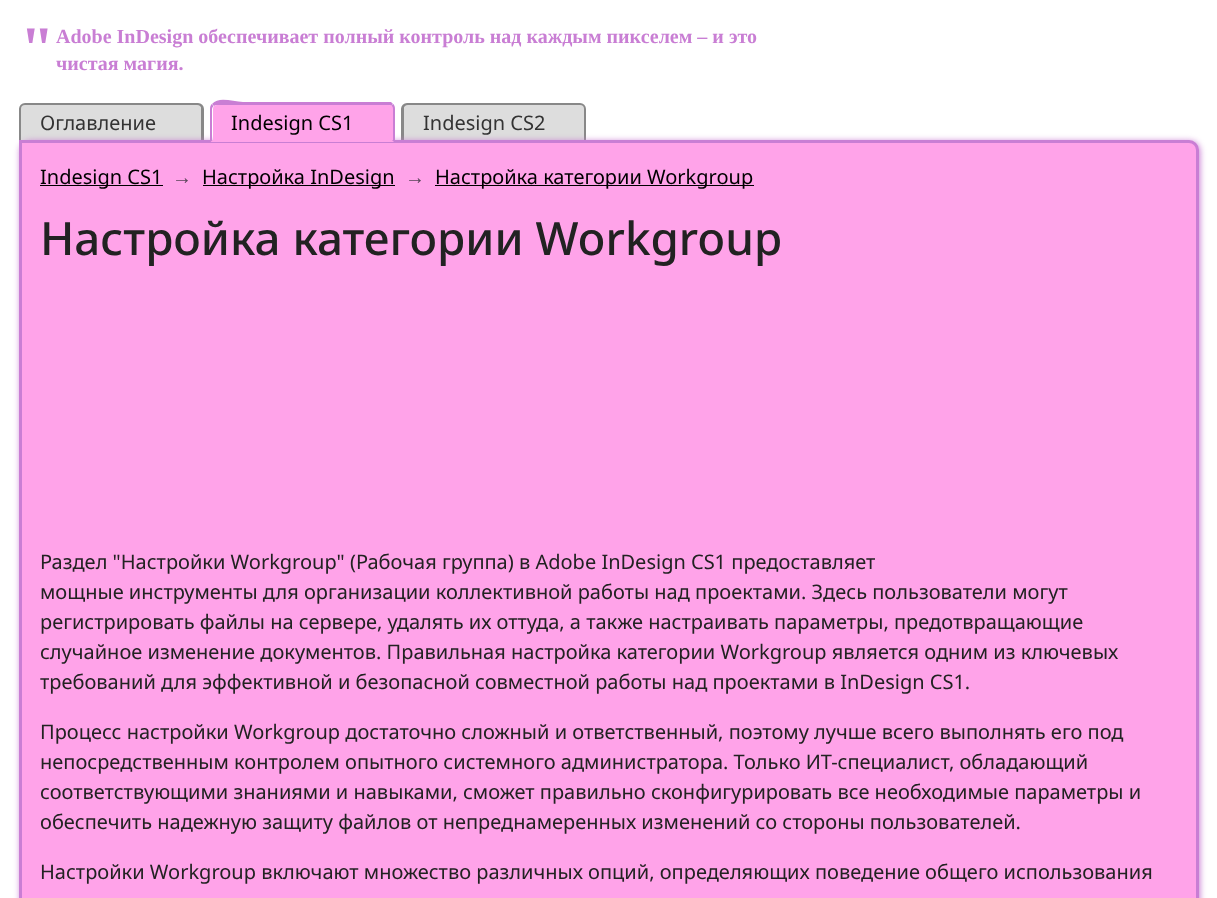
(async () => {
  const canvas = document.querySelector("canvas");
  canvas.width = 1217;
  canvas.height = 898;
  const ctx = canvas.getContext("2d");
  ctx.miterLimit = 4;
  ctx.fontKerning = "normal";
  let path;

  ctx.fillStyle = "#ffffff";
  ctx.fillRect(0, 0, 1217, 898);
  ctx.beginPath();
  ctx.roundRect(20.5, 104.5, 182, 37, [4.5, 4.5, 0, 0]);
  ctx.strokeStyle = "#888888";
  ctx.lineWidth = 3;
  ctx.stroke();
  ctx.fillStyle = "#dddddd";
  ctx.beginPath();
  ctx.roundRect(21, 105, 180, 35, [4, 4, 0, 0]);
  ctx.fill();
  ctx.fillStyle = "#c97ed4";
  path = new Path2D("M216 105L214 106L212 104C219 96 233 102 243 102H391L393 104L391 106L389 105Z");
  ctx.fill(path);
  ctx.beginPath();
  ctx.roundRect(402.5, 104.5, 182, 37, [4.5, 4.5, 0, 0]);
  ctx.stroke();
  ctx.fillStyle = "#dddddd";
  ctx.beginPath();
  ctx.roundRect(404, 105, 180, 35, [4, 4, 0, 0]);
  ctx.fill();
  ctx.fillStyle = "#c97ed4";
  ctx.filter = "blur(3px)";
  ctx.beginPath();
  ctx.roundRect(20, 141, 1180, 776, 10);
  ctx.fill();
  ctx.filter = "none";
  ctx.fillStyle = "#ffa3e9";
  path = new Path2D("M20.5 141.5H1189C1193.5 141.5 1197.5 145.5 1197.5 150V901C1197.5 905.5 1193.5 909.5 1189 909.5H29C24.5 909.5 20.5 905.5 20.5 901Z");
  ctx.fill(path);
  ctx.strokeStyle = "#c97ed4";
  ctx.stroke(path);
  ctx.fillStyle = "#c97ed4";
  path = new Path2D("M395 142V109C395 107 394.5 105.5 393.5 104L391 106C392 107 392 108 392 109V139.5L394.5 142Z");
  ctx.fill(path);
  ctx.fillStyle = "#ffa3e9";
  path = new Path2D("M394 142H210L212 140H392Z");
  ctx.fill(path);
  ctx.fillStyle = "#c97ed4";
  path = new Path2D("M210 109V142H210.5L212.5 140H212V109C212 108 212.5 107 213.5 106L211.5 104C210.5 105.5 210 107 210 109Z");
  ctx.fill(path);
  ctx.fillStyle = "#ffa3e9";
  ctx.beginPath();
  ctx.roundRect(213, 105, 180, 35, [4, 4, 0, 0]);
  ctx.fill();
  for (const [x, y, w, h, color] of [
    [40, 185, 123, 1, "#000000"],
    [203, 185, 192, 1, "#000000"],
    [435, 185, 319, 1, "#000000"],
  ]) {
    ctx.fillStyle = color;
    ctx.fillRect(x, y, w, h);
  }
  ctx.font = "bold 62px Liberation Serif";
  ctx.fillStyle = "#c97ed4";
  ctx.fillText("\"", 20, 69);
  ctx.font = "bold 20px Liberation Serif";
  ctx.fillText("Adobe InDesign обеспечивает полный контроль над каждым пикселем – и это", 56, 43);
  ctx.fillText("чистая магия.", 56, 70);
  ctx.font = "20px Noto Sans";
  ctx.fillStyle = "#333333";
  ctx.fillText("Оглавление", 40, 130);
  ctx.fillStyle = "#000000";
  ctx.fillText("Indesign CS1", 231, 130);
  ctx.fillStyle = "#333333";
  ctx.fillText("Indesign CS2", 423, 130);
  ctx.fillStyle = "#000000";
  ctx.fillText("Indesign CS1", 40, 184);
  ctx.font = "20px Liberation Sans";
  ctx.fillStyle = "#594559";
  ctx.fillText("→", 172, 184);
  ctx.font = "20px Noto Sans";
  ctx.fillStyle = "#000000";
  ctx.fillText("Настройка InDesign", 202, 184);
  ctx.font = "20px Liberation Sans";
  ctx.fillStyle = "#594559";
  ctx.fillText("→", 405, 184);
  ctx.font = "20px Noto Sans";
  ctx.fillStyle = "#000000";
  ctx.fillText("Настройка категории Workgroup", 435, 184);
  ctx.font = "500 45.75px Noto Sans";
  ctx.fillStyle = "#222222";
  ctx.fillText("Настройка категории Workgroup", 40, 255);
  ctx.font = "20px Noto Sans";
  for (const [text, x, y] of [
    ["Раздел \"Настройки Workgroup\" (Рабочая группа) в Adobe InDesign CS1 предоставляет", 40, 569],
    ["мощные инструменты для организации коллективной работы над проектами. Здесь пользователи могут", 40, 599],
    ["регистрировать файлы на сервере, удалять их оттуда, а также настраивать параметры, предотвращающие", 40, 629],
    ["случайное изменение документов. Правильная настройка категории Workgroup является одним из ключевых", 40, 659],
    ["требований для эффективной и безопасной совместной работы над проектами в InDesign CS1.", 40, 689],
    ["Процесс настройки Workgroup достаточно сложный и ответственный, поэтому лучше всего выполнять его под", 40, 739],
    ["непосредственным контролем опытного системного администратора. Только ИТ-специалист, обладающий", 40, 769],
    ["соответствующими знаниями и навыками, сможет правильно сконфигурировать все необходимые параметры и", 40, 799],
    ["обеспечить надежную защиту файлов от непреднамеренных изменений со стороны пользователей.", 40, 829],
    ["Настройки Workgroup включают множество различных опций, определяющих поведение общего использования", 40, 879],
  ]) {
    ctx.fillText(text, x, y);
  }
})();
